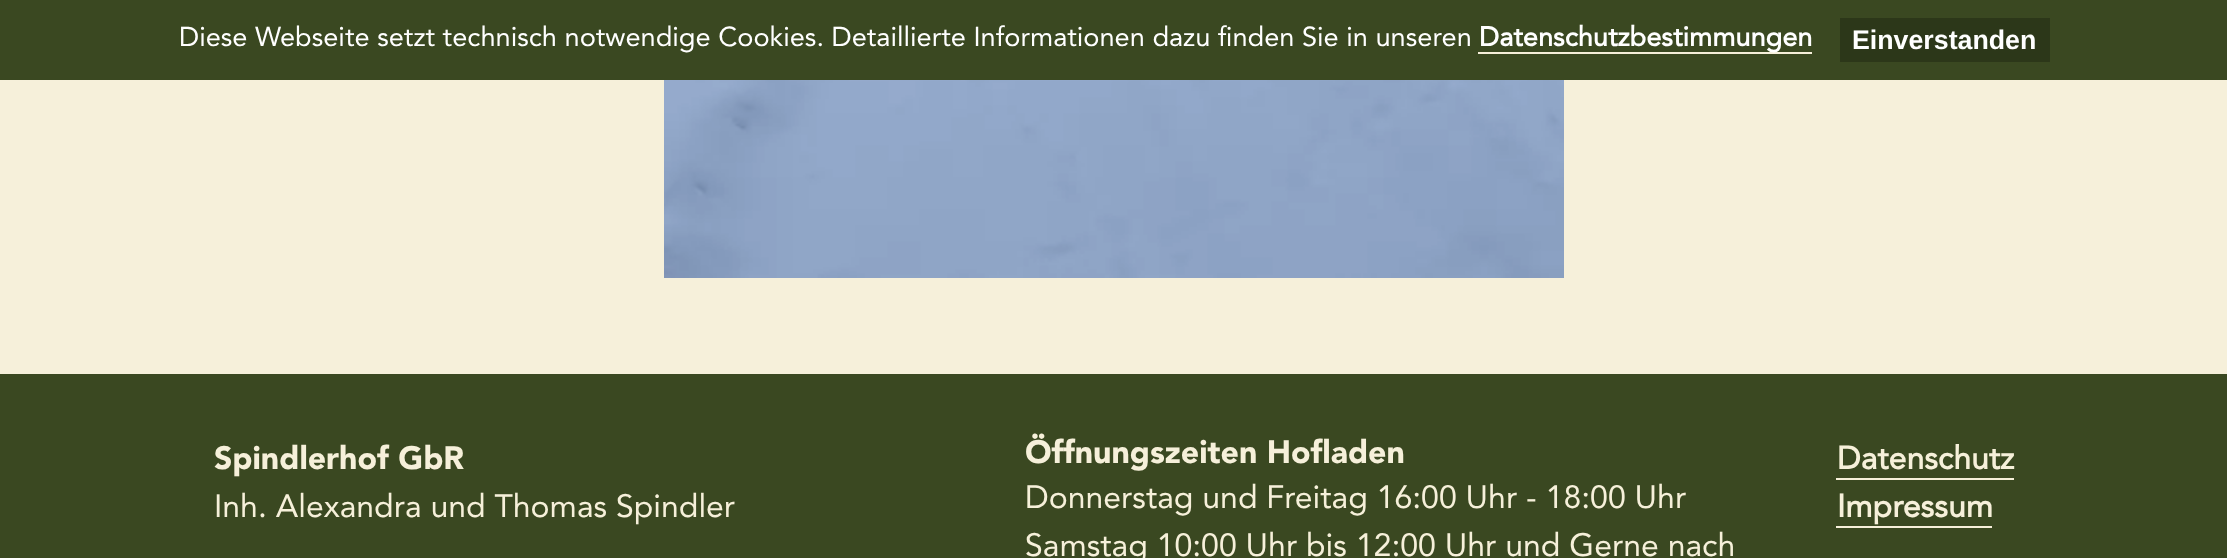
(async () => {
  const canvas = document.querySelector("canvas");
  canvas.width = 2227;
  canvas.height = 558;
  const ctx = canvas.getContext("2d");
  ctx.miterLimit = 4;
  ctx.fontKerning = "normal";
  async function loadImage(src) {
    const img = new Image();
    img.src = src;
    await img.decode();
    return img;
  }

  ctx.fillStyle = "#3a4821";
  ctx.fillRect(0, 0, 2227, 558);
  for (const [x, y, w, h, color] of [
    [1478, 52, 334, 2, "#f6f0da"],
    [1840, 18, 210, 44, "#2c3719"],
    [0, 80, 2227, 294, "#f6f0da"],
  ]) {
    ctx.fillStyle = color;
    ctx.fillRect(x, y, w, h);
  }
  ctx.drawImage(await loadImage("img/1.png"), 664, 80, 900, 198);
  ctx.fillRect(1836, 478, 178, 2);
  ctx.fillRect(1836, 526, 156, 2);
  ctx.font = "27.2px Avenir";
  ctx.fillStyle = "#ffffff";
  ctx.fillText("Diese Webseite setzt technisch notwendige Cookies. Detaillierte Informationen dazu finden Sie in unseren", 179, 46);
  ctx.font = "bold 27.2px Avenir";
  ctx.fillText("Datenschutzbestimmungen", 1479, 46);
  ctx.font = "bold 26.75px Liberation Sans";
  ctx.fillText("Einverstanden", 1852, 49);
  ctx.font = "900 32px Avenir";
  ctx.fillStyle = "#f6f0da";
  ctx.fillText("Spindlerhof GbR", 214, 469);
  ctx.font = "32px Avenir";
  ctx.fillText("Inh. Alexandra und Thomas Spindler", 214, 517);
  ctx.font = "900 32px Avenir";
  ctx.fillText("Öffnungszeiten Hofladen", 1025, 463);
  ctx.font = "32px Avenir";
  ctx.fillText("Donnerstag und Freitag 16:00 Uhr - 18:00 Uhr", 1025, 508);
  ctx.fillText("Samstag 10:00 Uhr bis 12:00 Uhr und Gerne nach", 1025, 556);
  ctx.font = "bold 32px Avenir";
  ctx.fillText("Datenschutz", 1837, 469);
  ctx.fillText("Impressum", 1837, 517);
})();
